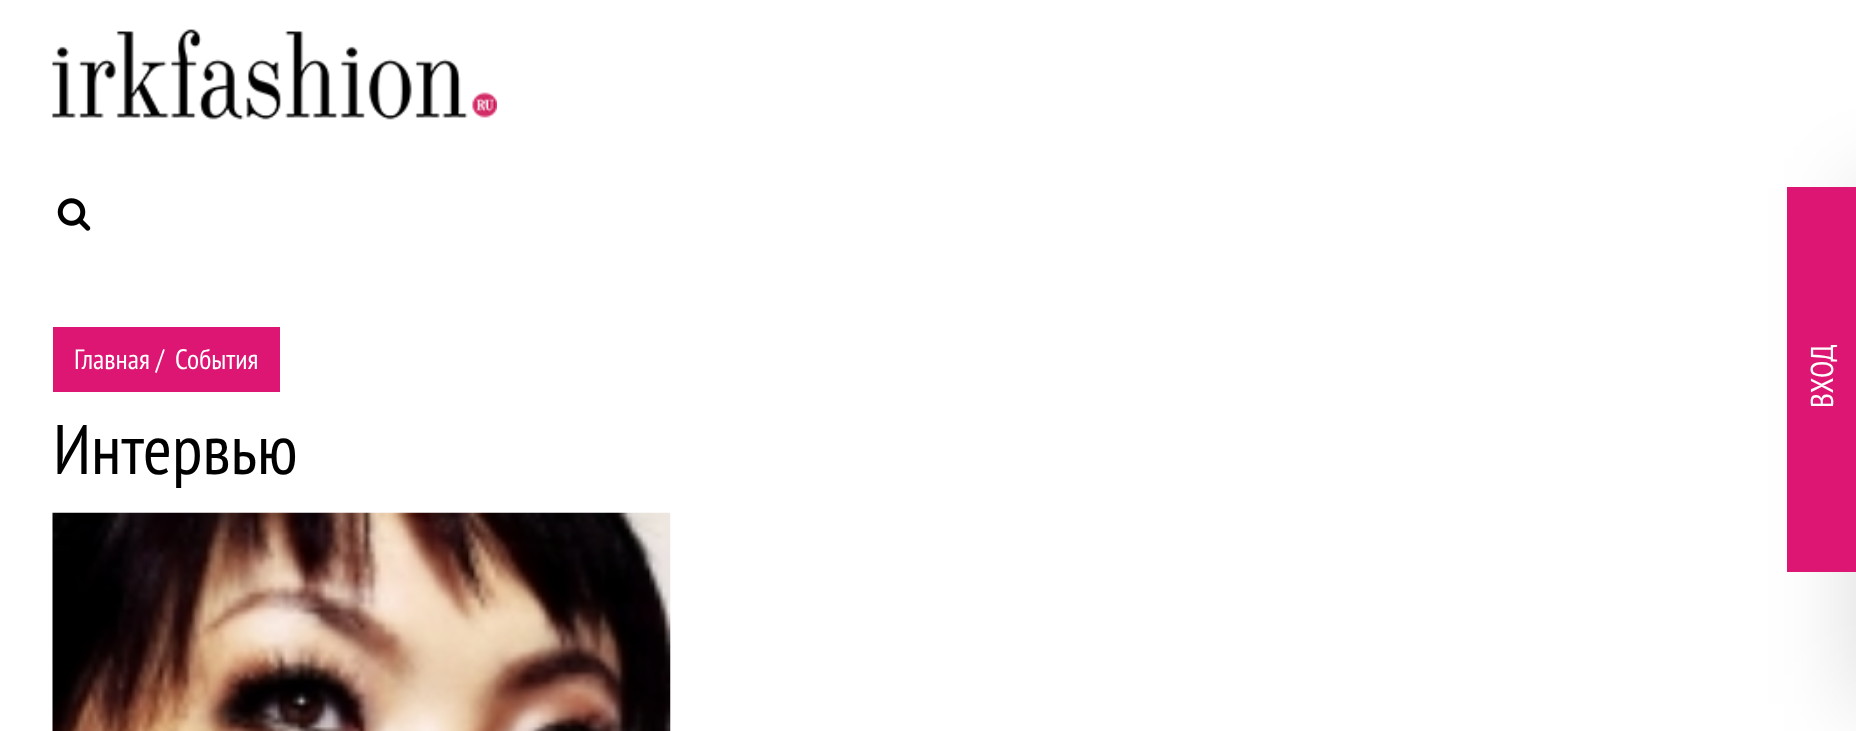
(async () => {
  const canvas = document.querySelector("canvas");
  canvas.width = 1856;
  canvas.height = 731;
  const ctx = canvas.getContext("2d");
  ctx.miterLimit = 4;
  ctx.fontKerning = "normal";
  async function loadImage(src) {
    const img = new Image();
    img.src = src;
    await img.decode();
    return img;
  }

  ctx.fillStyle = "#ffffff";
  ctx.fillRect(0, 0, 1856, 731);
  ctx.drawImage(await loadImage("img/1.png"), 52, 29, 445, 91);
  ctx.drawImage(await loadImage("img/2.png"), 57, 198, 34, 33);
  ctx.fillStyle = "#dd1673";
  ctx.fillRect(53, 327, 227, 65);
  ctx.drawImage(await loadImage("img/3.png"), 52, 512, 619, 219);
  ctx.fillStyle = "rgba(0, 0, 0, 0.15)";
  ctx.filter = "blur(44px)";
  ctx.beginPath();
  ctx.rect(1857, 187, 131, 517);
  ctx.fill();
  ctx.filter = "none";
  ctx.fillStyle = "#dd1673";
  ctx.fillRect(1787, 187, 69, 385);
  ctx.font = "28px PT Sans Narrow";
  ctx.fillStyle = "#ffffff";
  ctx.fillText("Главная /", 74, 369);
  ctx.fillText("События", 175, 369);
  ctx.font = "70px PT Sans Narrow";
  ctx.fillStyle = "#000000";
  ctx.fillText("Интервью", 53, 474);
  ctx.font = "31.5px PT Sans Narrow";
  ctx.fillStyle = "#ffffff";
  ctx.save();
  ctx.translate(1833, 408);
  ctx.rotate(-90 * Math.PI / 180);
  ctx.fillText("ВХОД", 0, 0);
  ctx.restore();
})();
